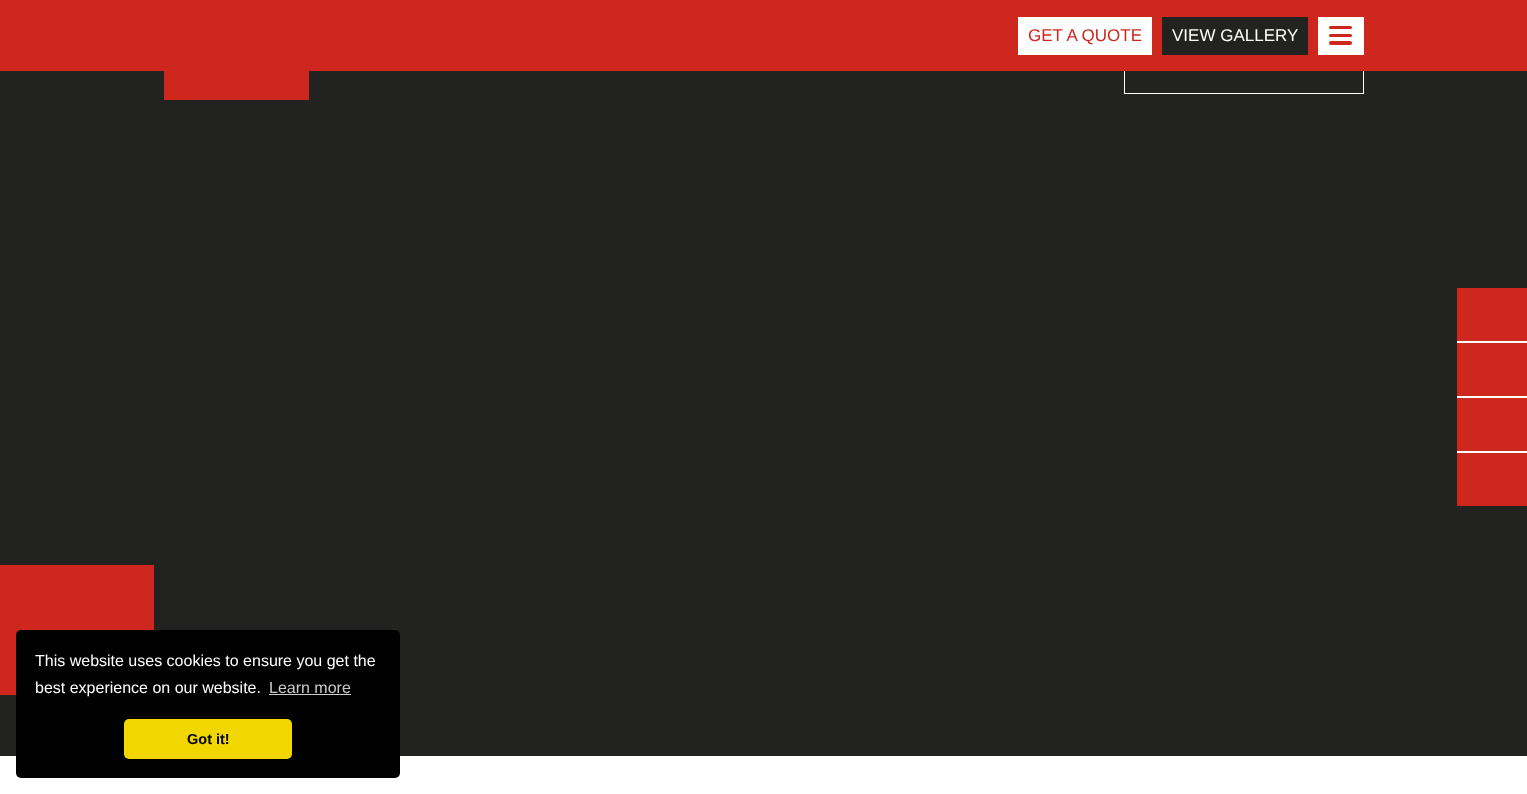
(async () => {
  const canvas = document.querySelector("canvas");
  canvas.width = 1527;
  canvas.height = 794;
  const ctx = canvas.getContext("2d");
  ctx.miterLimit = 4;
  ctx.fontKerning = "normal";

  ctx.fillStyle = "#222220";
  ctx.fillRect(0, 0, 1527, 794);
  ctx.strokeStyle = "#ffffff";
  ctx.strokeRect(1124.5, 50.5, 239, 43);
  for (const [x, y, w, h, color] of [
    [0, 0, 1527, 71, "#ce271e"],
    [1018, 17, 134, 38, "#ffffff"],
    [1162, 17, 146, 38, "#222220"],
    [1318, 17, 46, 38, "#ffffff"],
  ]) {
    ctx.fillStyle = color;
    ctx.fillRect(x, y, w, h);
  }
  ctx.fillStyle = "#ce271e";
  ctx.beginPath();
  ctx.roundRect(1329, 26, 23, 3, 1.5);
  ctx.fill();
  ctx.beginPath();
  ctx.roundRect(1329, 34, 23, 3, 1.5);
  ctx.fill();
  ctx.beginPath();
  ctx.roundRect(1329, 41, 23, 4, 2);
  ctx.fill();
  for (const [x, y, w, h, color] of [
    [164, 71, 145, 29, "#ce271e"],
    [0, 565, 154, 130, "#ce271e"],
    [0, 756, 1527, 38, "#ffffff"],
    [1457, 288, 70, 53, "#ce271e"],
    [1457, 341, 70, 2, "#ffffff"],
    [1457, 343, 70, 53, "#ce271e"],
    [1457, 396, 70, 2, "#ffffff"],
    [1457, 398, 70, 53, "#ce271e"],
    [1457, 451, 70, 2, "#ffffff"],
    [1457, 453, 70, 53, "#ce271e"],
  ]) {
    ctx.fillStyle = color;
    ctx.fillRect(x, y, w, h);
  }
  ctx.fillStyle = "#000000";
  ctx.beginPath();
  ctx.roundRect(16, 630, 384, 148, 5);
  ctx.fill();
  ctx.fillStyle = "#cccccc";
  ctx.fillRect(269, 694, 82, 1);
  ctx.fillStyle = "#f1d600";
  ctx.beginPath();
  ctx.roundRect(124, 719, 168, 40, 5);
  ctx.fill();
  ctx.font = "17px Liberation Sans";
  ctx.fillStyle = "#ce271e";
  ctx.fillText("GET A QUOTE", 1028, 41);
  ctx.fillStyle = "#ffffff";
  ctx.fillText("VIEW GALLERY", 1172, 41);
  ctx.font = "16px Liberation Sans";
  ctx.fillText("This website uses cookies to ensure you get the", 35, 666);
  ctx.fillText("best experience on our website.", 35, 693);
  ctx.fillStyle = "#cccccc";
  ctx.fillText("Learn more", 269, 693);
  ctx.font = "bold 14.5px Liberation Sans";
  ctx.fillStyle = "#000000";
  ctx.fillText("Got it!", 187, 744);
})();
